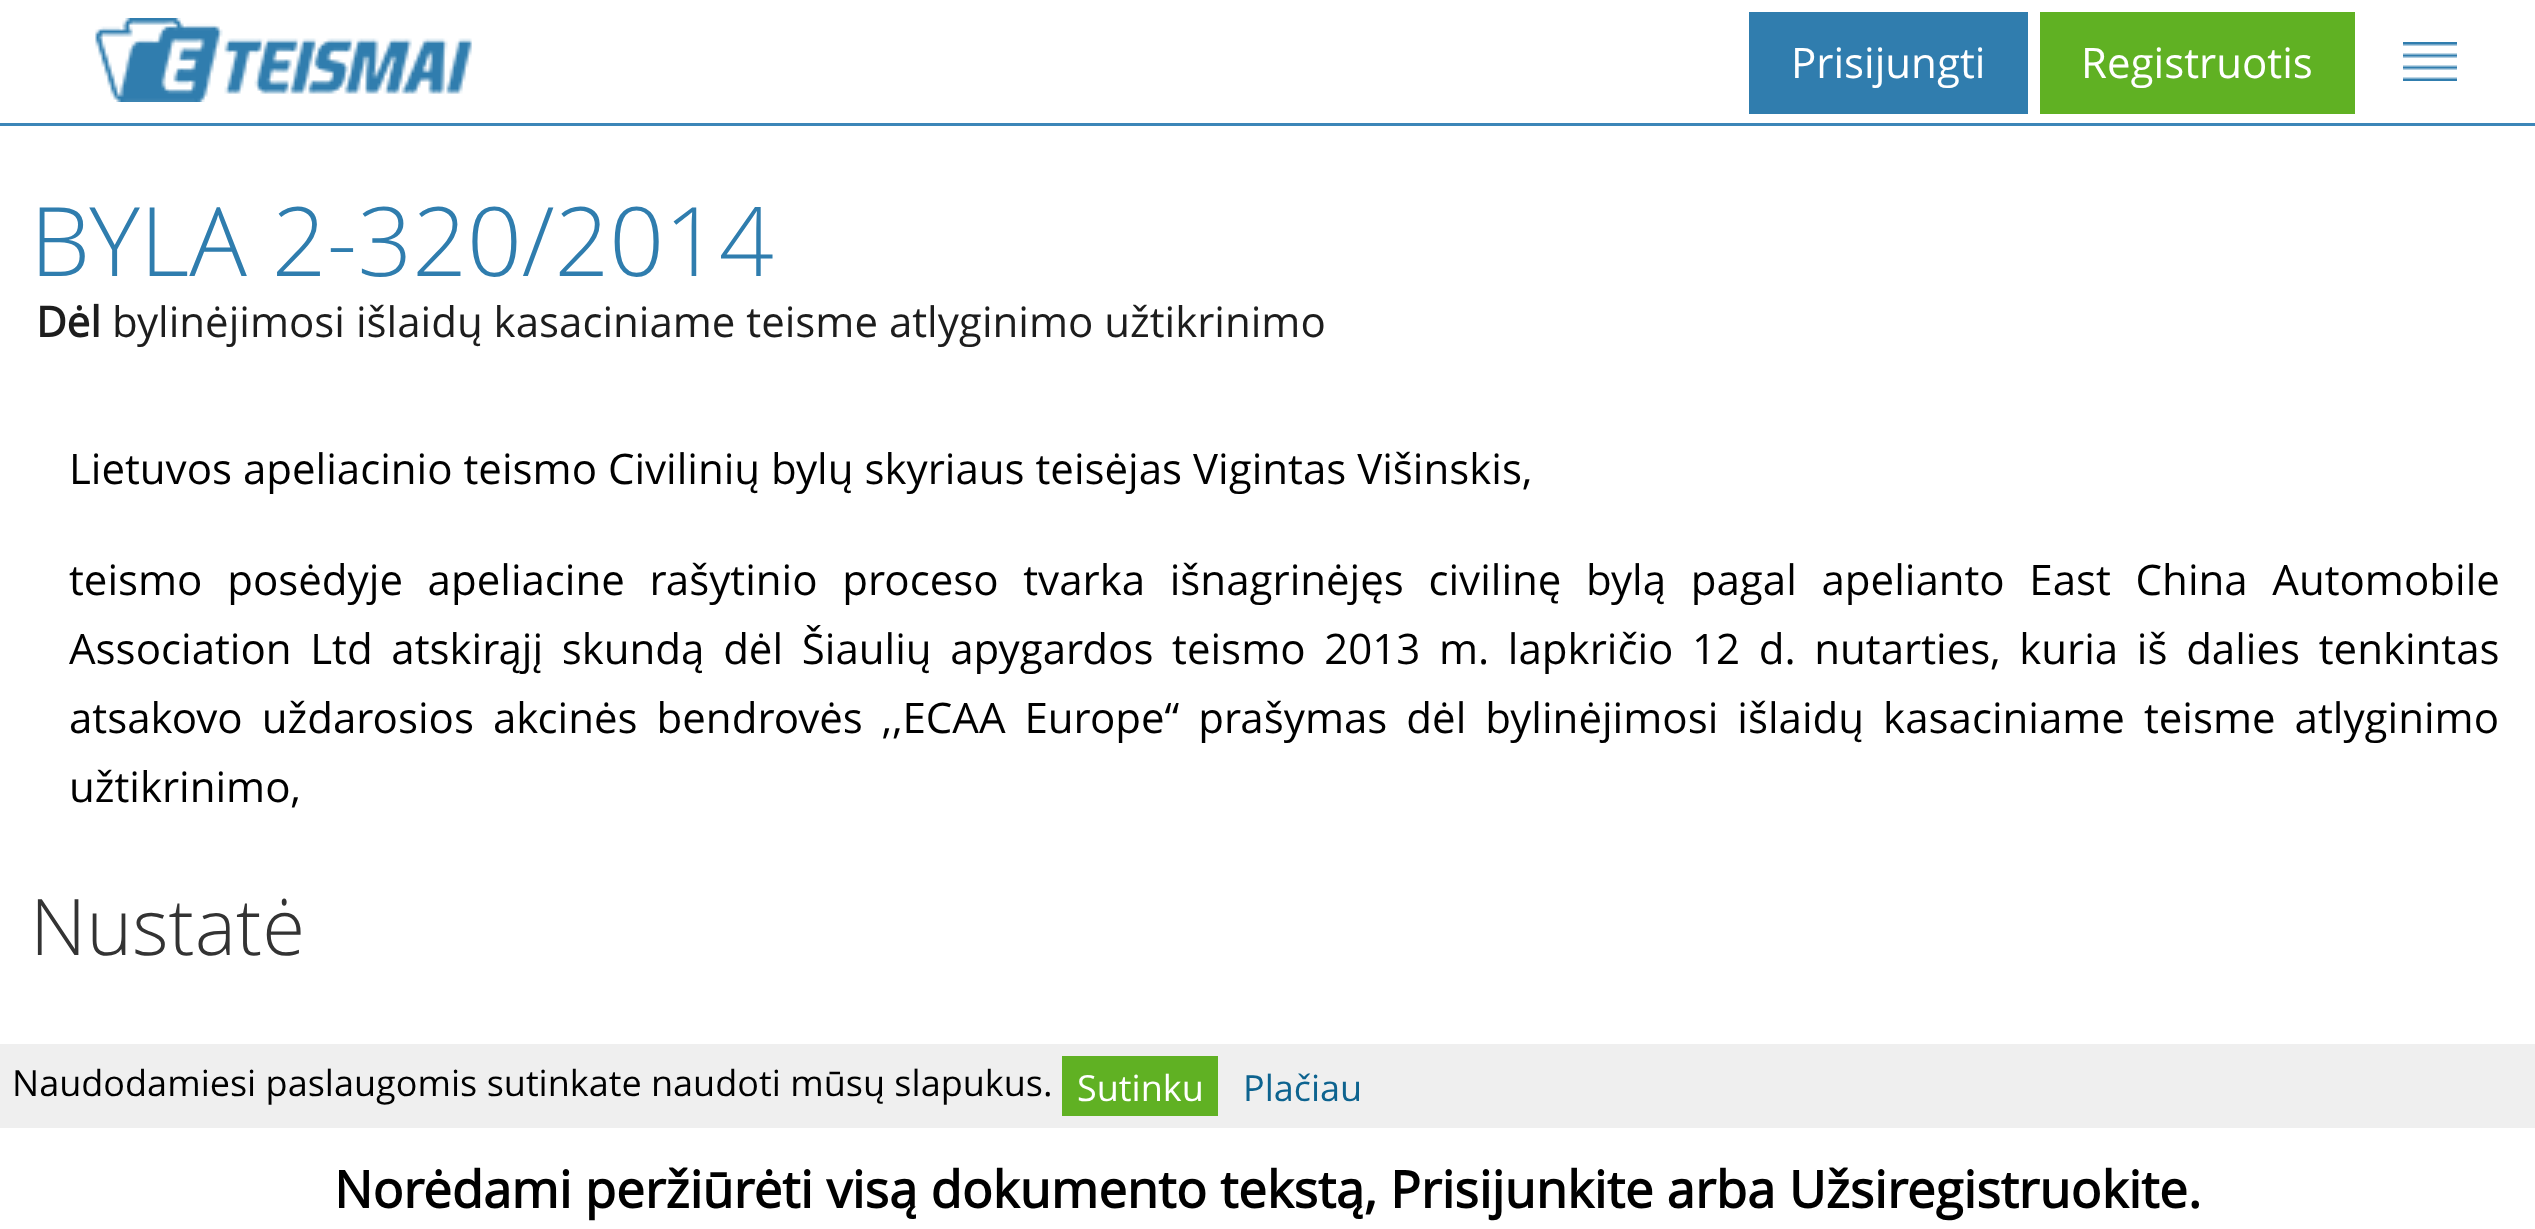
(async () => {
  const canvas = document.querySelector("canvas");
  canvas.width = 2535;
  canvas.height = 1229;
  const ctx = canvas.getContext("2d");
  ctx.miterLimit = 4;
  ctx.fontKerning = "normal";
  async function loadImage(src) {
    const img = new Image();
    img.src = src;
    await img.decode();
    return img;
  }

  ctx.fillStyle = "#ffffff";
  ctx.fillRect(0, 0, 2535, 1229);
  ctx.fillStyle = "#3c86b8";
  ctx.fillRect(0, 123, 2535, 3);
  ctx.drawImage(await loadImage("img/1.png"), 95, 18, 377, 84);
  ctx.fillStyle = "#307dae";
  ctx.fillRect(1749, 12, 279, 102);
  ctx.fillStyle = "#60b123";
  ctx.fillRect(2040, 12, 315, 102);
  ctx.drawImage(await loadImage("img/2.png"), 2403, 42, 54, 39);
  ctx.fillStyle = "#efefef";
  ctx.fillRect(0, 1044, 2535, 84);
  ctx.fillStyle = "#60b123";
  ctx.fillRect(1062, 1056, 156, 60);
  ctx.font = "42px Open Sans";
  ctx.fillStyle = "#ffffff";
  ctx.fillText("Prisijungti", 1791, 78);
  ctx.fillText("Registruotis", 2081, 78);
  ctx.font = "300 96px Open Sans";
  ctx.fillStyle = "#2f7dae";
  ctx.fillText("BYLA 2-320/2014", 30, 276);
  ctx.font = "bold 42px Open Sans";
  ctx.fillStyle = "#1d1d1d";
  ctx.fillText("Dėl", 36, 337);
  ctx.font = "42px Open Sans";
  ctx.fillText("bylinėjimosi išlaidų kasaciniame teisme atlyginimo užtikrinimo", 112, 337);
  ctx.fillStyle = "#000000";
  ctx.fillText("Lietuvos apeliacinio teismo Civilinių bylų skyriaus teisėjas Vigintas Višinskis,", 69, 484);
  ctx.wordSpacing = "13.75px";
  ctx.fillText("teismo posėdyje apeliacine rašytinio proceso tvarka išnagrinėjęs civilinę bylą pagal apelianto East China Automobile", 69, 595);
  ctx.wordSpacing = "7.75px";
  ctx.fillText("Association Ltd atskirąjį skundą dėl Šiaulių apygardos teismo 2013 m. lapkričio 12 d. nutarties, kuria iš dalies tenkintas", 69, 664);
  ctx.wordSpacing = "8.1px";
  ctx.fillText("atsakovo uždarosios akcinės bendrovės ,,ECAA Europe“ prašymas dėl bylinėjimosi išlaidų kasaciniame teisme atlyginimo", 69, 733);
  ctx.wordSpacing = "0px";
  ctx.fillText("užtikrinimo,", 69, 802);
  ctx.font = "300 78px Open Sans";
  ctx.fillStyle = "#333333";
  ctx.fillText("Nustatė", 30, 955);
  ctx.font = "bold 51px Open Sans";
  ctx.fillStyle = "#000000";
  ctx.fillText("Norėdami peržiūrėti visą dokumento tekstą, Prisijunkite arba Užsiregistruokite.", 334, 1208);
  ctx.font = "36px Open Sans";
  ctx.fillText("Naudodamiesi paslaugomis sutinkate naudoti mūsų slapukus.", 12, 1096);
  ctx.fillStyle = "#ffffff";
  ctx.fillText("Sutinku", 1077, 1101);
  ctx.fillStyle = "#0d638f";
  ctx.fillText("Plačiau", 1243, 1101);
})();
